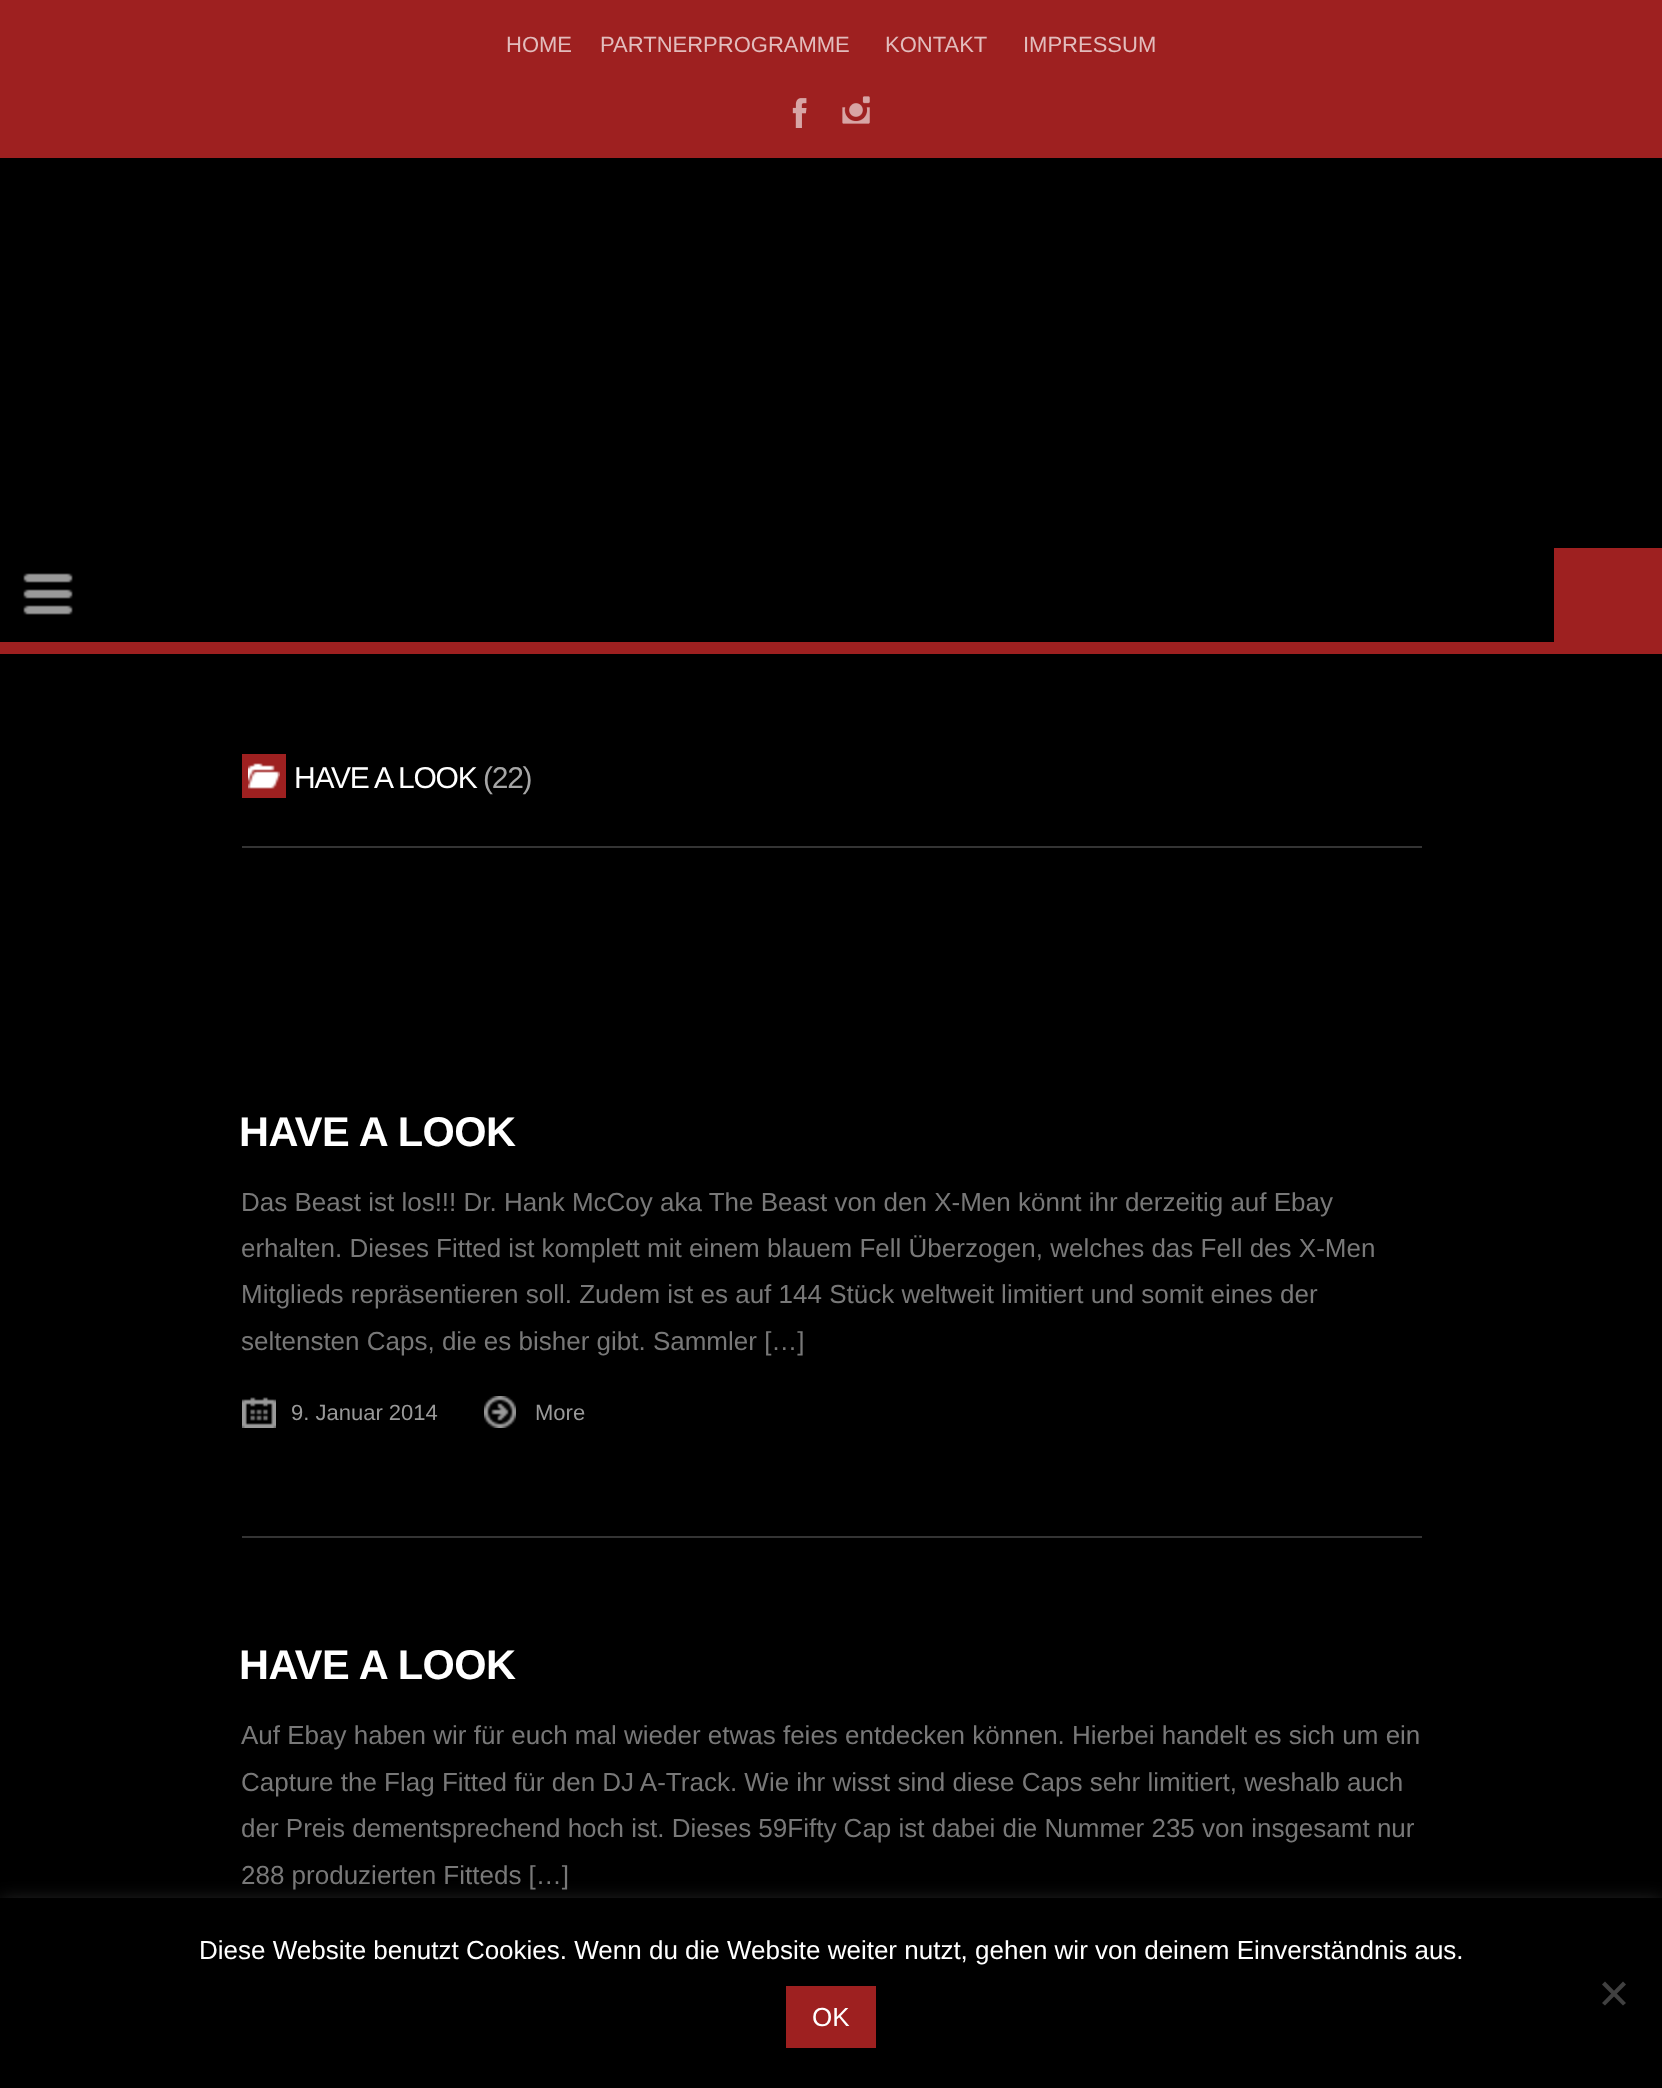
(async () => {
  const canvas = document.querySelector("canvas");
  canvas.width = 1662;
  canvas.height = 2088;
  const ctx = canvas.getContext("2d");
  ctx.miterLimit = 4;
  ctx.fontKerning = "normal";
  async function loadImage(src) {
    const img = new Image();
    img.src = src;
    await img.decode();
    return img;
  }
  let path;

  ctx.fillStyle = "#000000";
  ctx.fillRect(0, 0, 1662, 2088);
  ctx.fillStyle = "#9e2020";
  ctx.fillRect(0, 0, 1662, 158);
  ctx.drawImage(await loadImage("img/1.png"), 792, 98, 15, 30);
  ctx.drawImage(await loadImage("img/2.png"), 842, 96, 28, 28);
  ctx.fillRect(0, 642, 1662, 12);
  ctx.drawImage(await loadImage("img/3.png"), 23, 573, 50, 42);
  for (const [x, y, w, h, color] of [
    [1554, 548, 108, 94, "#9e2020"],
    [242, 846, 1180, 2, "#343434"],
    [242, 754, 44, 44, "#9e2020"],
  ]) {
    ctx.fillStyle = color;
    ctx.fillRect(x, y, w, h);
  }
  ctx.drawImage(await loadImage("img/4.png"), 248, 763, 32, 26);
  ctx.fillStyle = "#343434";
  ctx.fillRect(242, 1536, 1180, 2);
  ctx.drawImage(await loadImage("img/5.png"), 242, 1397, 34, 31);
  ctx.drawImage(await loadImage("img/6.png"), 484, 1396, 32, 32);
  ctx.fillStyle = "rgba(172, 171, 171, 0.3)";
  ctx.filter = "blur(10px)";
  ctx.beginPath();
  ctx.rect(0, 1902, 1662, 184);
  ctx.fill();
  ctx.filter = "none";
  ctx.fillStyle = "#000000";
  ctx.fillRect(0, 1898, 1662, 190);
  ctx.fillStyle = "#404040";
  path = new Path2D("M1623 1981.5L1626 1984.5L1605 2005.5L1602 2003Z");
  ctx.fill(path);
  path = new Path2D("M1602 1984.5L1605 1981.5L1626 2003L1623 2005.5Z");
  ctx.fill(path);
  ctx.fillStyle = "#9e2020";
  ctx.fillRect(786, 1986, 90, 62);
  ctx.font = "22px Liberation Sans";
  ctx.fillStyle = "#e2bcbc";
  for (const [text, x, y] of [
    ["HOME", 506, 52],
    ["PARTNERPROGRAMME", 600, 52],
    ["KONTAKT", 885, 52],
    ["IMPRESSUM", 1023, 52],
  ]) {
    ctx.fillText(text, x, y);
  }
  ctx.letterSpacing = "-1.25px";
  ctx.font = "30px Liberation Sans";
  ctx.fillStyle = "#ffffff";
  ctx.fillText("HAVE A LOOK", 294, 788);
  ctx.fillStyle = "#a6a6a6";
  ctx.fillText("(22)", 483, 788);
  ctx.letterSpacing = "-0.5px";
  ctx.font = "bold 41.5px Liberation Sans";
  ctx.fillStyle = "#ffffff";
  ctx.fillText("HAVE A LOOK", 239, 1146);
  ctx.letterSpacing = "0px";
  ctx.font = "26px Liberation Sans";
  ctx.fillStyle = "#787878";
  for (const [text, x, y] of [
    ["Das Beast ist los!!! Dr. Hank McCoy aka The Beast von den X-Men könnt ihr derzeitig auf Ebay", 241, 1211],
    ["erhalten. Dieses Fitted ist komplett mit einem blauem Fell Überzogen, welches das Fell des X-Men", 241, 1257],
    ["Mitglieds repräsentieren soll. Zudem ist es auf 144 Stück weltweit limitiert und somit eines der", 241, 1303],
    ["seltensten Caps, die es bisher gibt. Sammler […]", 241, 1350],
  ]) {
    ctx.fillText(text, x, y);
  }
  ctx.font = "22px Liberation Sans";
  ctx.fillStyle = "#999999";
  ctx.fillText("9. Januar 2014", 291, 1420);
  ctx.fillText("More", 535, 1420);
  ctx.letterSpacing = "-0.5px";
  ctx.font = "bold 41.5px Liberation Sans";
  ctx.fillStyle = "#ffffff";
  ctx.fillText("HAVE A LOOK", 239, 1679);
  ctx.letterSpacing = "0px";
  ctx.font = "26px Liberation Sans";
  ctx.fillStyle = "#787878";
  for (const [text, x, y] of [
    ["Auf Ebay haben wir für euch mal wieder etwas feies entdecken können. Hierbei handelt es sich um ein", 241, 1744],
    ["Capture the Flag Fitted für den DJ A-Track. Wie ihr wisst sind diese Caps sehr limitiert, weshalb auch", 241, 1791],
    ["der Preis dementsprechend hoch ist. Dieses 59Fifty Cap ist dabei die Nummer 235 von insgesamt nur", 241, 1837],
    ["288 produzierten Fitteds […]", 241, 1884],
  ]) {
    ctx.fillText(text, x, y);
  }
  ctx.fillStyle = "#ffffff";
  ctx.fillText("Diese Website benutzt Cookies. Wenn du die Website weiter nutzt, gehen wir von deinem Einverständnis aus.", 199, 1959);
  ctx.fillText("OK", 812, 2026);
})();
